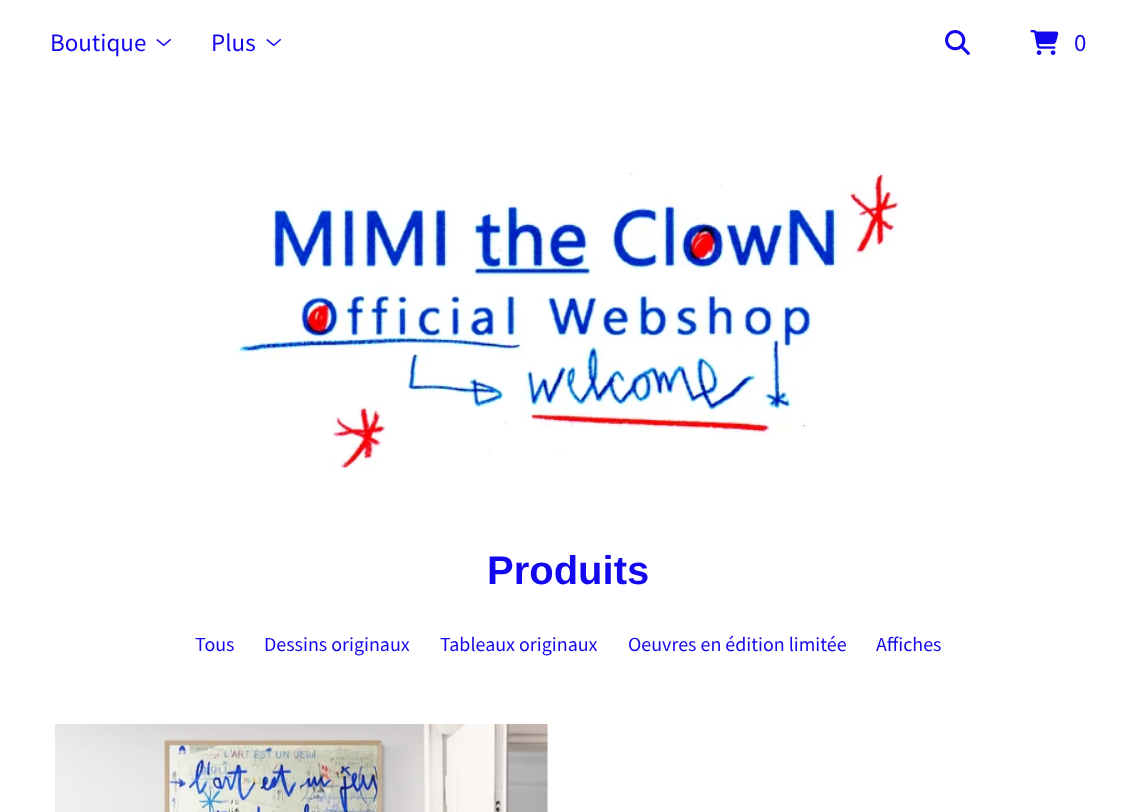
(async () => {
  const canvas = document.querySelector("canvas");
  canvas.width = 1136;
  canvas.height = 812;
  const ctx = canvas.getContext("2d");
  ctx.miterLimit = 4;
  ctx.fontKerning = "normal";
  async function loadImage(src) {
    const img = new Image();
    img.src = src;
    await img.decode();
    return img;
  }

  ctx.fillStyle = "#ffffff";
  ctx.fillRect(0, 0, 1136, 812);
  ctx.drawImage(await loadImage("img/1.png"), 156, 39, 15, 7);
  ctx.drawImage(await loadImage("img/1.png"), 266, 39, 15, 7);
  ctx.drawImage(await loadImage("img/2.png"), 945, 30, 25, 25);
  ctx.drawImage(await loadImage("img/3.png"), 1030, 30, 29, 25);
  ctx.drawImage(await loadImage("img/4.png"), 235, 168, 668, 300);
  ctx.drawImage(await loadImage("img/5.png"), 55, 724, 493, 88);
  ctx.font = "25px Source Sans Pro";
  ctx.fillStyle = "#1307ed";
  for (const [text, x, y] of [
    ["Boutique", 50, 51],
    ["Plus", 211, 51],
    ["0", 1074, 51],
  ]) {
    ctx.fillText(text, x, y);
  }
  ctx.font = "bold 40px Liberation Sans";
  ctx.fillText("Produits", 487, 584);
  ctx.font = "20px Source Sans Pro";
  for (const [text, x, y] of [
    ["Tous", 195, 651],
    ["Dessins originaux", 264, 651],
    ["Tableaux originaux", 440, 651],
    ["Oeuvres en édition limitée", 628, 651],
    ["Affiches", 876, 651],
  ]) {
    ctx.fillText(text, x, y);
  }
})();
